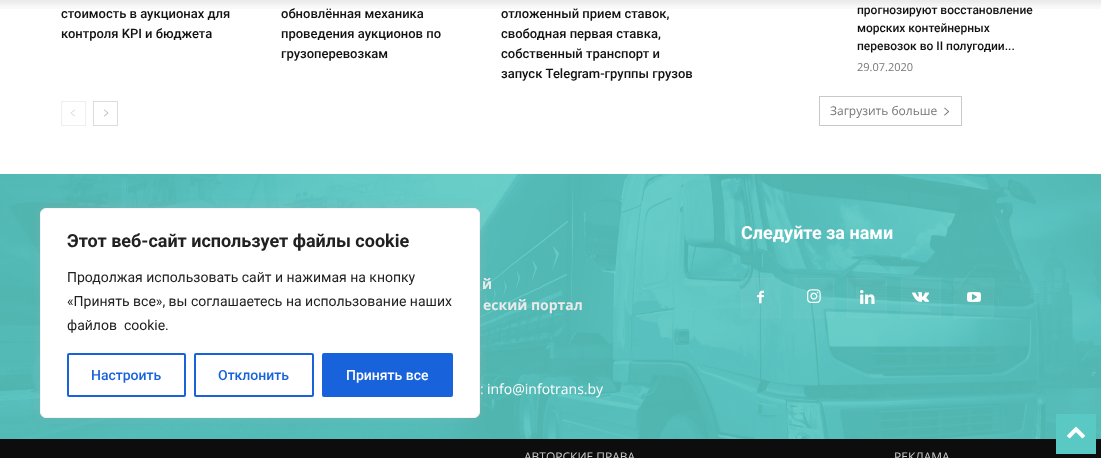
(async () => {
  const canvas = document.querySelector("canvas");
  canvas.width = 1101;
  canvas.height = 458;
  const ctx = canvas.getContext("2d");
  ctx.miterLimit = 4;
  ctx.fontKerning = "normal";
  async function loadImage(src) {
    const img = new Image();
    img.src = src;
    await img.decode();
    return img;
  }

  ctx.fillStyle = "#ffffff";
  ctx.fillRect(0, 0, 1101, 458);
  ctx.strokeStyle = "#eeeeee";
  ctx.strokeRect(61.5, 101.5, 24, 24);
  ctx.drawImage(await loadImage("img/2.png"), 70, 109, 5, 8);
  ctx.strokeStyle = "#dcdcdc";
  ctx.strokeRect(93.5, 101.5, 24, 24);
  ctx.drawImage(await loadImage("img/3.png"), 104, 109, 5, 8);
  ctx.strokeStyle = "#c9c9c9";
  ctx.strokeRect(819.5, 96.5, 142, 29);
  ctx.drawImage(await loadImage("img/4.png"), 944, 107, 6, 9);
  ctx.fillStyle = "#5ac9c3";
  ctx.fillRect(0, 174, 1101, 265);
  ctx.drawImage(await loadImage("img/5.png"), 0, 174, 1101, 265);
  ctx.fillStyle = "rgba(255, 255, 255, 0.03)";
  ctx.fillRect(741, 278, 40, 40);
  ctx.drawImage(await loadImage("img/6.png"), 757, 290, 7, 14);
  ctx.strokeStyle = "rgba(255, 255, 255, 0.03)";
  ctx.strokeRect(741.5, 278.5, 39, 39);
  ctx.fillRect(794, 278, 40, 40);
  ctx.drawImage(await loadImage("img/7.png"), 807, 289, 14, 14);
  ctx.strokeRect(794.5, 278.5, 39, 39);
  ctx.fillRect(847, 278, 40, 40);
  ctx.drawImage(await loadImage("img/8.png"), 860, 290, 15, 14);
  ctx.strokeRect(847.5, 278.5, 39, 39);
  ctx.fillRect(901, 278, 40, 40);
  ctx.drawImage(await loadImage("img/9.png"), 912, 292, 17, 10);
  ctx.strokeRect(901.5, 278.5, 39, 39);
  ctx.fillRect(954, 278, 40, 40);
  ctx.drawImage(await loadImage("img/10.png"), 967, 292, 14, 10);
  ctx.strokeRect(954.5, 278.5, 39, 39);
  ctx.fillStyle = "#0d0d0d";
  ctx.fillRect(0, 439, 1101, 19);
  ctx.fillStyle = "rgba(172, 171, 171, 0.3)";
  ctx.filter = "blur(5px)";
  ctx.beginPath();
  ctx.roundRect(40, 207, 440, 210, 6);
  ctx.fill();
  ctx.filter = "none";
  ctx.fillStyle = "#ffffff";
  ctx.beginPath();
  ctx.roundRect(40.5, 208.5, 439, 209, 5.5);
  ctx.fill();
  ctx.strokeStyle = "#f4f4f4";
  ctx.stroke();
  ctx.beginPath();
  ctx.roundRect(68, 354, 117, 42, 1);
  ctx.strokeStyle = "#1863dc";
  ctx.lineWidth = 2;
  ctx.stroke();
  ctx.beginPath();
  ctx.roundRect(195, 354, 118, 42, 1);
  ctx.stroke();
  ctx.fillStyle = "#1863dc";
  ctx.beginPath();
  ctx.roundRect(323, 354, 129, 42, 1);
  ctx.fill();
  ctx.stroke();
  ctx.fillStyle = "#5ac9c3";
  ctx.fillRect(1056, 414, 40, 40);
  ctx.drawImage(await loadImage("img/11.png"), 1067, 426, 18, 13);
  ctx.font = "500 13px Roboto";
  ctx.fillStyle = "#111111";
  for (const [text, x, y] of [
    ["стоимость в аукционах для", 61, 18],
    ["контроля KPI и бюджета", 61, 38],
    ["обновлённая механика", 281, 18],
    ["проведения аукционов по", 281, 38],
    ["грузоперевозкам", 281, 58],
    ["отложенный прием ставок,", 501, 18],
    ["свободная первая ставка,", 501, 38],
    ["собственный транспорт и", 501, 58],
    ["запуск Telegram-группы грузов", 501, 78],
  ]) {
    ctx.fillText(text, x, y);
  }
  ctx.font = "500 12px Roboto";
  ctx.fillText("прогнозируют восстановление", 857, 14);
  ctx.drawImage(await loadImage("img/1.png"), 0, 0, 1101, 9);
  ctx.fillText("морских контейнерных", 857, 32);
  ctx.fillText("перевозок во II полугодии...", 857, 50);
  ctx.font = "11px Open Sans";
  ctx.fillStyle = "#767676";
  ctx.fillText("29.07.2020", 857, 71);
  ctx.font = "12px Open Sans";
  ctx.fillText("Загрузить больше", 830, 115);
  ctx.font = "bold 18px Roboto";
  ctx.fillStyle = "#ffffff";
  ctx.fillText("Следуйте за нами", 741, 239);
  ctx.font = "bold 14px Open Sans";
  ctx.fillStyle = "#eaeaea";
  ctx.fillText("й", 482, 289);
  ctx.fillText("еский портал", 483, 310);
  ctx.font = "14px Open Sans";
  ctx.fillText(":", 480, 394);
  ctx.fillStyle = "#ffffff";
  ctx.fillText("info@infotrans.bу", 487, 394);
  ctx.font = "12px Open Sans";
  ctx.fillStyle = "#cccccc";
  ctx.fillText("АВТОРСКИЕ ПРАВА", 524, 461);
  ctx.fillText("РЕКЛАМА", 894, 461);
  ctx.font = "bold 18px Roboto";
  ctx.fillStyle = "#212121";
  ctx.fillText("Этот веб-сайт использует файлы cookie", 67, 247);
  ctx.font = "14px Roboto";
  for (const [text, x, y] of [
    ["Продолжая использовать сайт и нажимая на кнопку", 67, 282],
    ["«Принять все», вы соглашаетесь на использование наших", 67, 306],
    ["файлов  cookie.", 67, 330],
  ]) {
    ctx.fillText(text, x, y);
  }
  ctx.font = "500 14px Roboto";
  ctx.fillStyle = "#1863dc";
  ctx.fillText("Настроить", 91, 380);
  ctx.fillText("Отклонить", 218, 380);
  ctx.fillStyle = "#ffffff";
  ctx.fillText("Принять все", 346, 380);
})();
